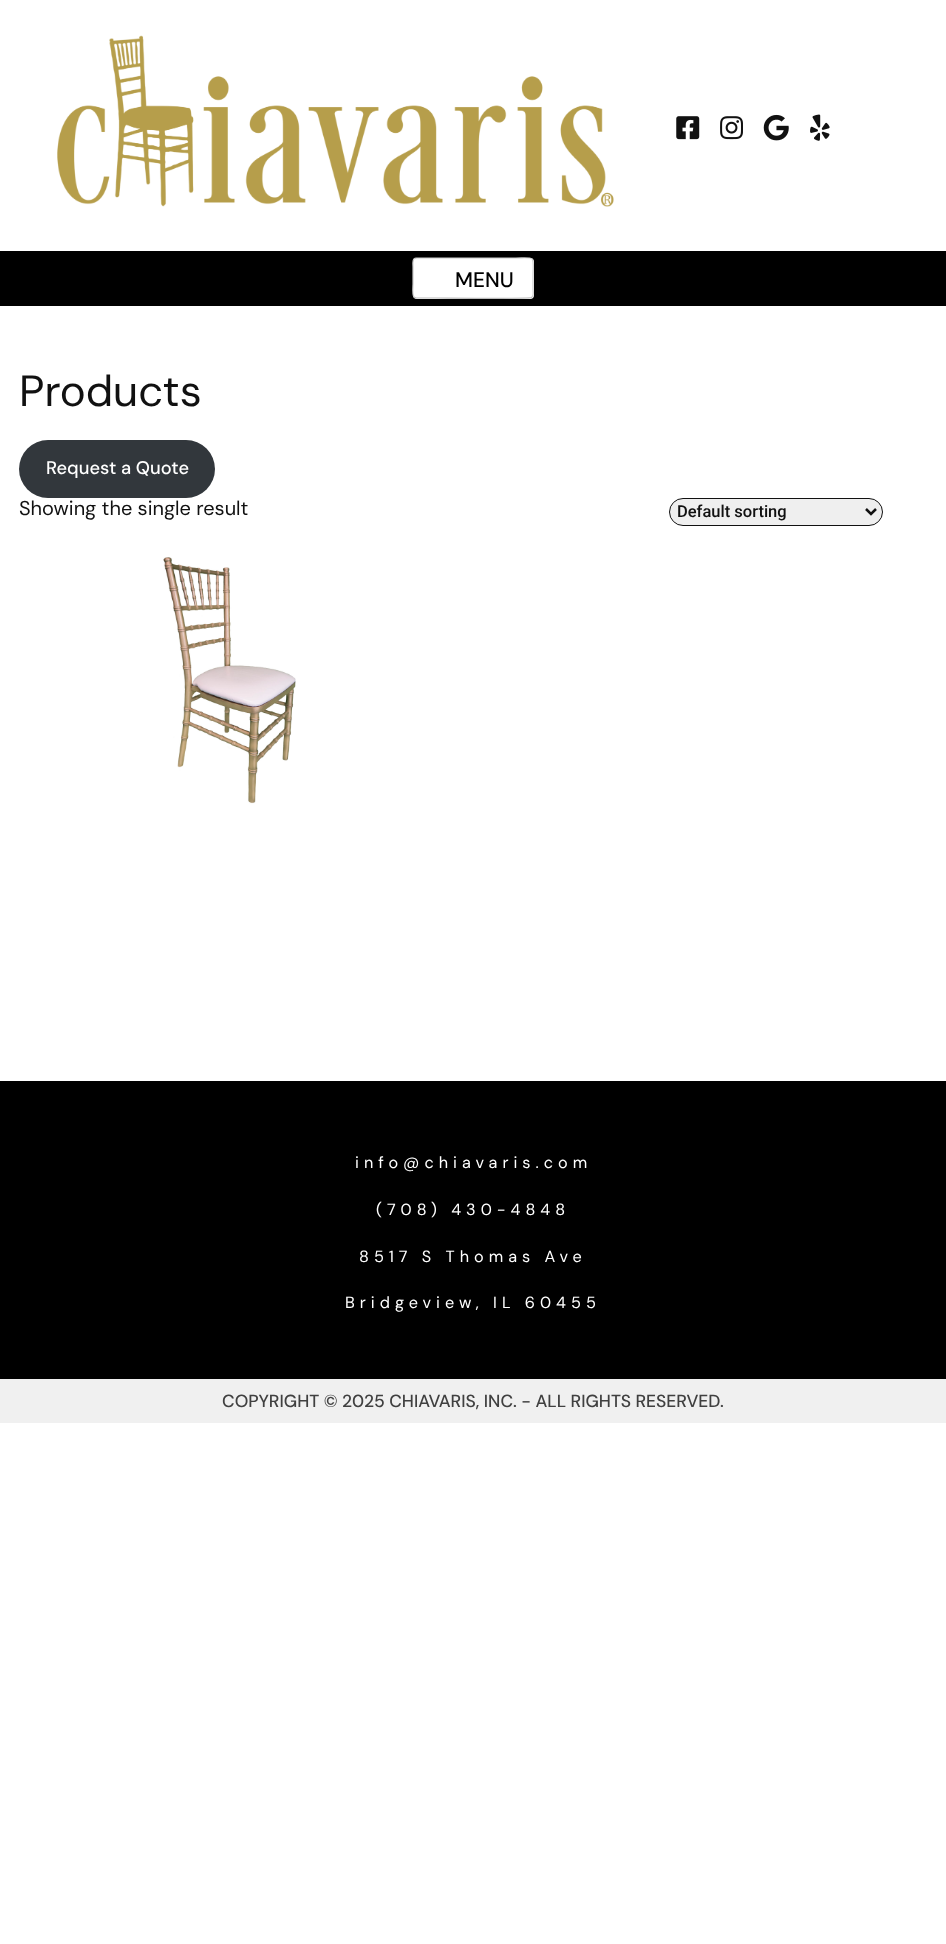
(async () => {
  const canvas = document.querySelector("canvas");
  canvas.width = 946;
  canvas.height = 1944;
  const ctx = canvas.getContext("2d");
  ctx.miterLimit = 4;
  ctx.fontKerning = "normal";
  async function loadImage(src) {
    const img = new Image();
    img.src = src;
    await img.decode();
    return img;
  }
  let path;

  ctx.fillStyle = "#ffffff";
  ctx.fillRect(0, 0, 946, 1944);
  ctx.drawImage(await loadImage("img/1.png"), 57, 35, 557, 172);
  ctx.drawImage(await loadImage("img/2.png"), 676, 116, 24, 24);
  ctx.drawImage(await loadImage("img/3.png"), 720, 116, 23, 24);
  ctx.drawImage(await loadImage("img/4.png"), 763, 114, 26, 27);
  ctx.drawImage(await loadImage("img/5.png"), 810, 114, 20, 27);
  ctx.fillStyle = "#000000";
  ctx.fillRect(0, 251, 946, 55);
  ctx.fillStyle = "#ffffff";
  ctx.beginPath();
  ctx.roundRect(413, 258, 121, 41, 4);
  ctx.fill();
  path = new Path2D("M532 297L531.5 297.5C529.5 299 445 298 435 298H416L414 297");
  ctx.strokeStyle = "#bbbbbb";
  ctx.lineWidth = 1.2;
  ctx.stroke(path);
  path = new Path2D("M414 297C412 295 413 286.5 413 284V267C413 264.5 412 258 416 258H511C537.5 258 533 253.5 533 278V289.5C533 291 534 295.5 532 297");
  ctx.strokeStyle = "#cccccc";
  ctx.stroke(path);
  ctx.fillStyle = "#32373c";
  ctx.beginPath();
  ctx.roundRect(19, 440, 196, 58, 29);
  ctx.fill();
  ctx.fillStyle = "#efefef";
  ctx.beginPath();
  ctx.roundRect(669.5, 498.5, 213, 27, 13.5);
  ctx.fill();
  ctx.strokeStyle = "#111111";
  ctx.lineWidth = 1;
  ctx.stroke();
  path = new Path2D("M866 509L871 514L876 509");
  ctx.lineWidth = 2.5;
  ctx.stroke(path);
  ctx.drawImage(await loadImage("img/6.png"), 163, 557, 133, 247);
  ctx.fillStyle = "#000000";
  ctx.fillRect(0, 1081, 946, 298);
  ctx.fillStyle = "#f0f0f0";
  ctx.fillRect(0, 1379, 946, 44);
  ctx.font = "500 21px DM Sans";
  ctx.fillStyle = "#000000";
  ctx.fillText("MENU", 455, 287);
  ctx.font = "43.75px DM Sans";
  ctx.fillStyle = "#111111";
  ctx.fillText("Products", 19, 406);
  ctx.font = "500 18.25px DM Sans";
  ctx.fillStyle = "#ffffff";
  ctx.fillText("Request a Quote", 46, 474);
  ctx.font = "20px DM Sans";
  ctx.fillStyle = "#111111";
  ctx.fillText("Showing the single result", 19, 515);
  ctx.font = "500 16.5px Roboto";
  ctx.fillText("Default sorting", 677, 517);
  ctx.letterSpacing = "5px";
  ctx.font = "16.25px DM Sans";
  ctx.fillStyle = "#ffffff";
  for (const [text, x, y] of [
    ["info@chiavaris.com", 355, 1168],
    ["(708) 430-4848", 376, 1215],
    ["8517 S Thomas Ave", 359, 1262],
    ["Bridgeview, IL 60455", 345, 1308],
  ]) {
    ctx.fillText(text, x, y);
  }
  ctx.letterSpacing = "0px";
  ctx.font = "500 17.5px DM Sans";
  ctx.fillStyle = "#404040";
  ctx.fillText("COPYRIGHT © 2025 CHIAVARIS, INC. - ALL RIGHTS RESERVED.", 222, 1407);
})();
